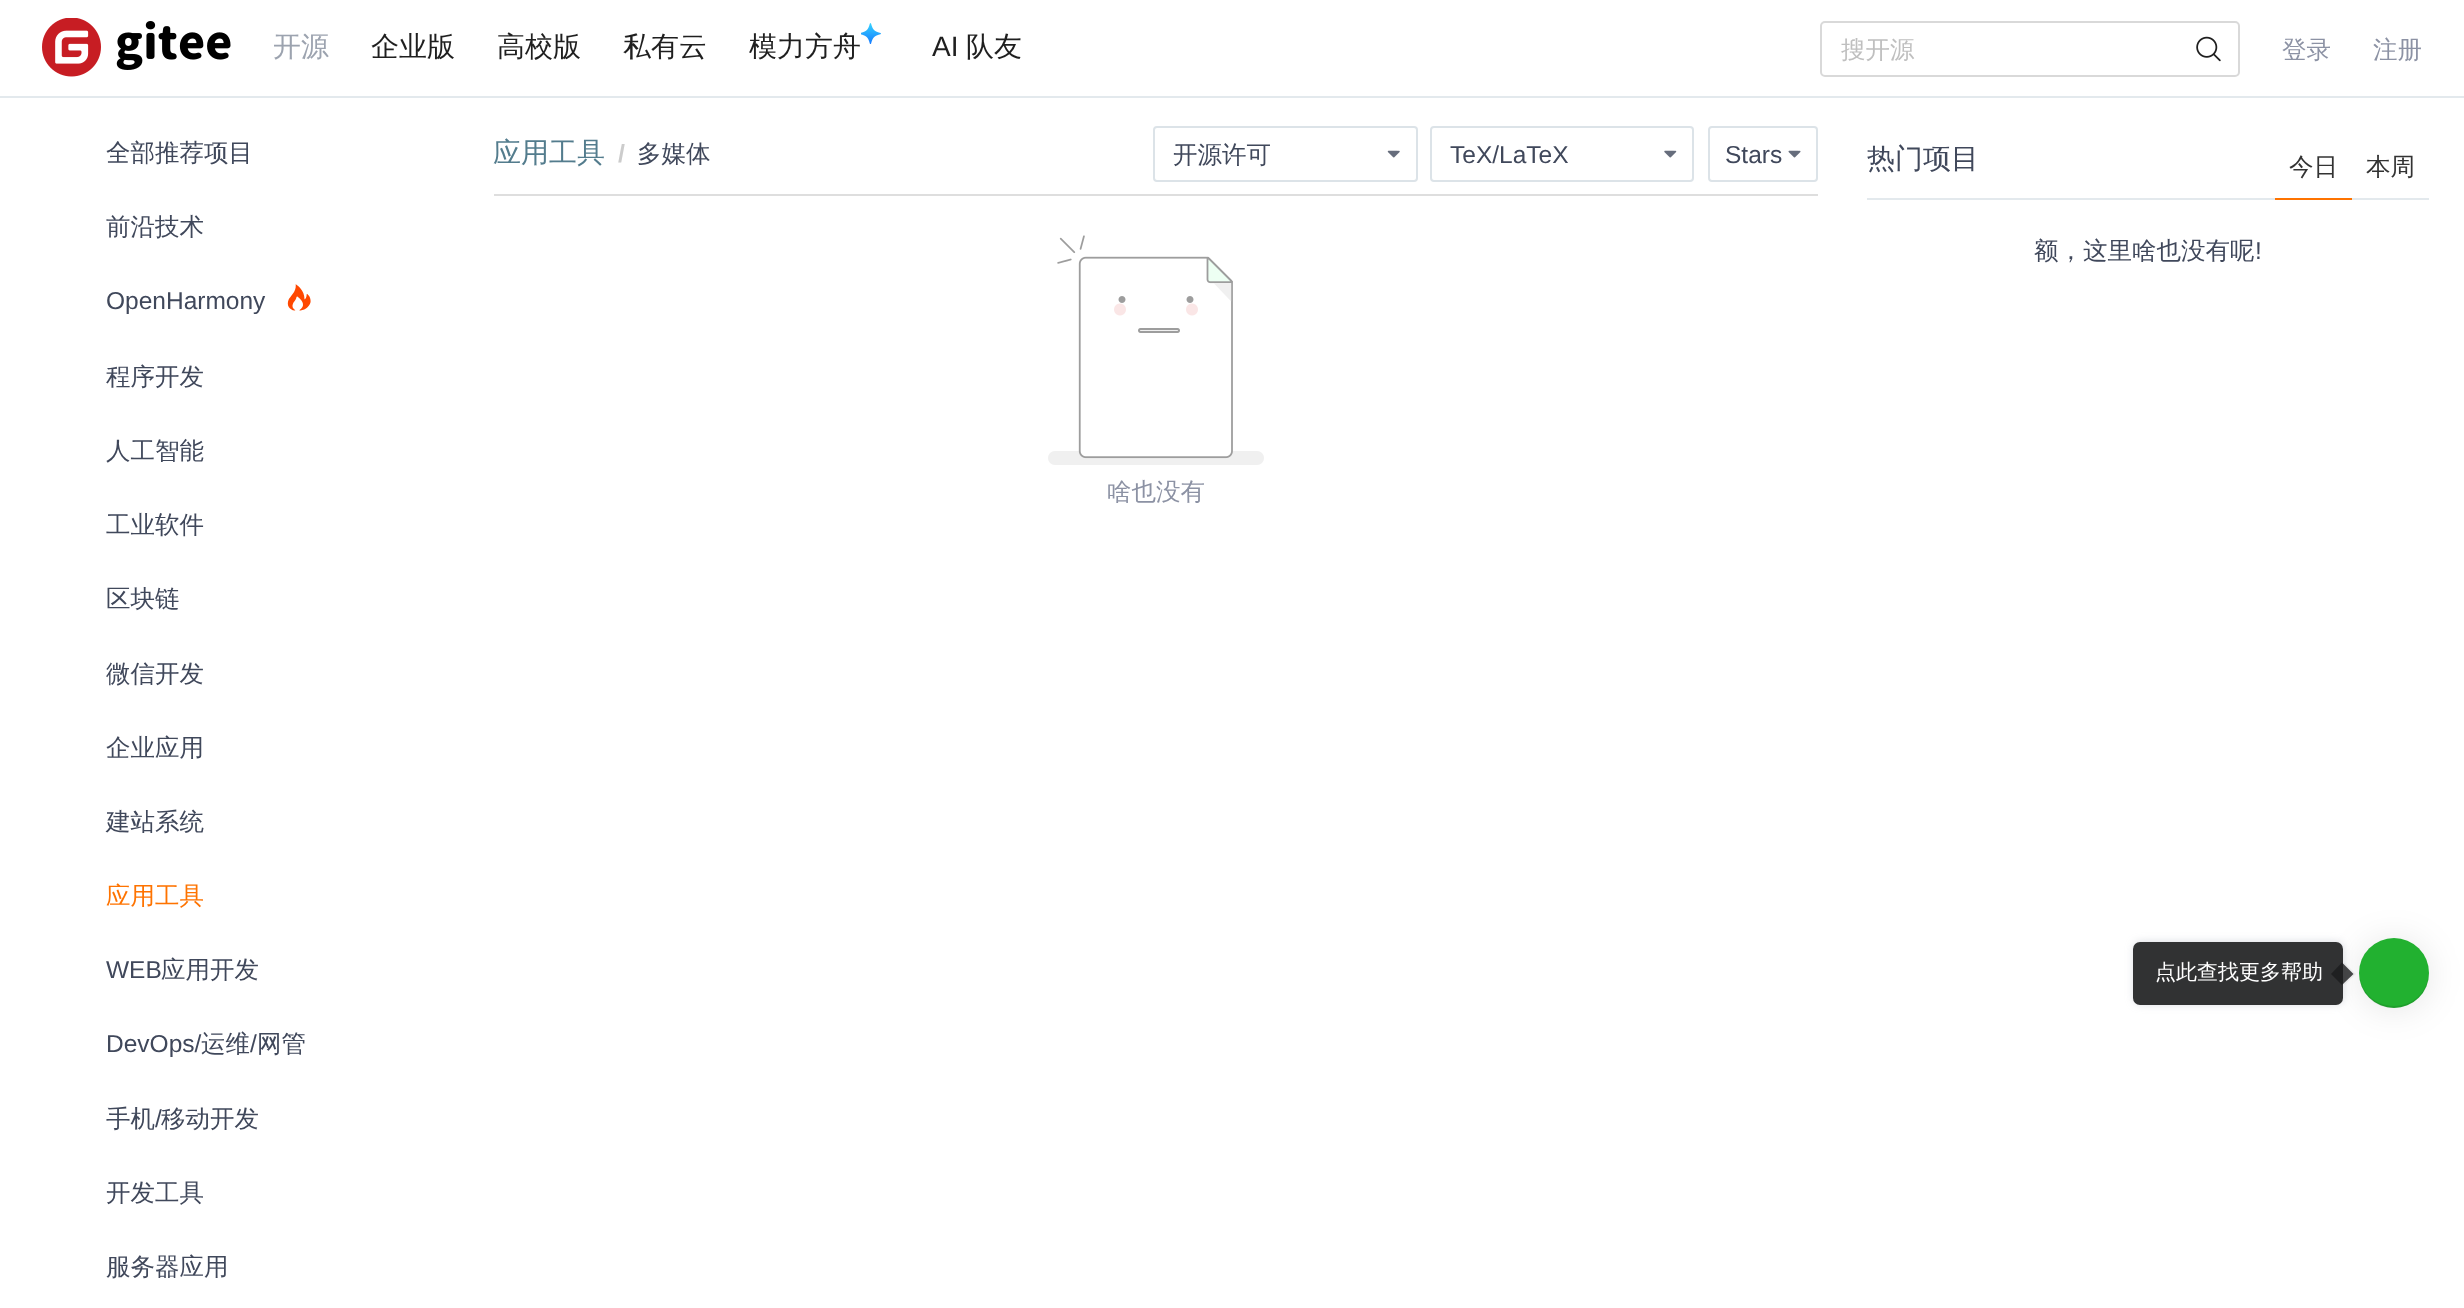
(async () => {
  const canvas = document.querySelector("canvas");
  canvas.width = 2464;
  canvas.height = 1308;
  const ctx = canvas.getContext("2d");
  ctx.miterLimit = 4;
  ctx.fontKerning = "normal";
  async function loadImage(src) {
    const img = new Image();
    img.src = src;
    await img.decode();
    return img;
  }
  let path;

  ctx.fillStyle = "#ffffff";
  ctx.fillRect(0, 0, 2464, 1308);
  ctx.fillStyle = "#e3e9ed";
  ctx.fillRect(0, 96, 2464, 2);
  ctx.drawImage(await loadImage("img/1.png"), 42, 18, 189, 59);
  ctx.drawImage(await loadImage("img/2.png"), 861, 23, 20, 21);
  ctx.beginPath();
  ctx.roundRect(1821, 22, 418, 54, 4);
  ctx.strokeStyle = "#d9d9d9";
  ctx.lineWidth = 2;
  ctx.stroke();
  ctx.drawImage(await loadImage("img/3.png"), 2196, 36, 25, 26);
  ctx.drawImage(await loadImage("img/4.png"), 287, 284, 24, 27);
  ctx.beginPath();
  ctx.roundRect(1154, 127, 263, 54, 3);
  ctx.strokeStyle = "#dce3e8";
  ctx.stroke();
  ctx.drawImage(await loadImage("img/5.png"), 1387, 150, 13, 8);
  ctx.beginPath();
  ctx.roundRect(1431, 127, 262, 54, 3);
  ctx.stroke();
  ctx.drawImage(await loadImage("img/6.png"), 1664, 150, 13, 8);
  ctx.beginPath();
  ctx.roundRect(1709, 127, 108, 54, 3);
  ctx.stroke();
  ctx.drawImage(await loadImage("img/7.png"), 1788, 150, 13, 8);
  ctx.fillStyle = "#dedede";
  ctx.fillRect(494, 194, 1324, 2);
  ctx.drawImage(await loadImage("img/8.png"), 1048, 235, 216, 230);
  for (const [x, y, w, h, color] of [
    [1867, 198, 408, 2, "#e3e9ed"],
    [2275, 198, 77, 2, "#fe7300"],
    [2352, 198, 77, 2, "#e3e9ed"],
  ]) {
    ctx.fillStyle = color;
    ctx.fillRect(x, y, w, h);
  }
  ctx.save();
  path = new Path2D("M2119 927H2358V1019H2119ZM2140 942H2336C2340 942 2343 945 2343 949V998C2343 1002 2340 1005 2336 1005H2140C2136 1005 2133 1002 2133 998V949C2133 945 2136 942 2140 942Z");
  ctx.clip(path, "evenodd");
  ctx.fillStyle = "rgba(140, 146, 163, 0.45)";
  ctx.filter = "blur(5px)";
  ctx.beginPath();
  ctx.roundRect(2135, 943, 207, 60, 5);
  ctx.fill();
  ctx.filter = "none";
  ctx.restore();
  ctx.fillStyle = "rgba(0, 0, 0, 0.1)";
  ctx.filter = "blur(17.5px)";
  ctx.beginPath();
  ctx.roundRect(2359, 940, 70, 70, 35);
  ctx.fill();
  ctx.filter = "none";
  ctx.fillStyle = "rgba(27, 28, 29, 0.9)";
  ctx.beginPath();
  ctx.roundRect(2133, 942, 210, 63, 7);
  ctx.fill();
  ctx.fillStyle = "rgba(179, 179, 179, 0.16)";
  path = new Path2D("M2344.5 962.5L2343.5 964L2353.5 974L2343.5 984L2344.5 985L2356 974Z");
  ctx.fill(path);
  ctx.fillStyle = "rgba(27, 28, 29, 0.81)";
  path = new Path2D("M2342 962.5L2353.5 974L2342 985L2331 974Z");
  ctx.fill(path);
  ctx.fillStyle = "#22b130";
  ctx.beginPath();
  ctx.arc(2394, 973, 35, 0, Math.PI * 2);
  ctx.fill();
  ctx.fillStyle = "rgba(0, 0, 0, 0.1)";
  path = new Path2D("M2359 972C2359 979 2361 987 2365 993C2384 1021 2430 1007 2429 972C2428 992 2413 1006 2394 1006C2375 1006 2360 992 2359 972Z");
  ctx.fill(path);
  ctx.font = "500 28px WenQuanYi Zen Hei";
  ctx.fillStyle = "#9ca3af";
  ctx.fillText("开源", 273, 56);
  ctx.fillStyle = "#1f1f1f";
  for (const [text, x, y] of [
    ["企业版", 371, 56],
    ["高校版", 497, 56],
    ["私有云", 623, 56],
    ["模力方舟", 749, 56],
  ]) {
    ctx.fillText(text, x, y);
  }
  ctx.font = "28px Liberation Sans";
  ctx.fillText("AI", 932, 56);
  ctx.font = "500 28px WenQuanYi Zen Hei";
  ctx.fillText("队友", 966, 56);
  ctx.font = "500 24.5px WenQuanYi Zen Hei";
  ctx.fillStyle = "#bfbfbf";
  ctx.fillText("搜开源", 1841, 58);
  ctx.fillStyle = "#8c92a4";
  ctx.fillText("登录", 2282, 58);
  ctx.fillText("注册", 2373, 58);
  ctx.fillStyle = "#40485b";
  ctx.fillText("全部推荐项目", 106, 161);
  ctx.fillText("前沿技术", 106, 235);
  ctx.font = "24.5px Liberation Sans";
  ctx.fillText("OpenHarmony", 106, 309);
  ctx.font = "500 24.5px WenQuanYi Zen Hei";
  for (const [text, x, y] of [
    ["程序开发", 106, 385],
    ["人工智能", 106, 459],
    ["工业软件", 106, 533],
    ["区块链", 106, 607],
    ["微信开发", 106, 682],
    ["企业应用", 106, 756],
    ["建站系统", 106, 830],
  ]) {
    ctx.fillText(text, x, y);
  }
  ctx.fillStyle = "#fe7300";
  ctx.fillText("应用工具", 106, 904);
  ctx.font = "24.5px Liberation Sans";
  ctx.fillStyle = "#40485b";
  ctx.fillText("WEB", 106, 978);
  ctx.font = "500 24.5px WenQuanYi Zen Hei";
  ctx.fillText("应用开发", 161, 978);
  ctx.font = "24.5px Liberation Sans";
  ctx.fillText("DevOps/", 106, 1052);
  ctx.font = "500 24.5px WenQuanYi Zen Hei";
  ctx.fillText("运维", 201, 1052);
  ctx.font = "24.5px Liberation Sans";
  ctx.fillText("/", 250, 1052);
  ctx.font = "500 24.5px WenQuanYi Zen Hei";
  ctx.fillText("网管", 257, 1052);
  ctx.fillText("手机", 106, 1127);
  ctx.font = "24.5px Liberation Sans";
  ctx.fillText("/", 155, 1127);
  ctx.font = "500 24.5px WenQuanYi Zen Hei";
  for (const [text, x, y] of [
    ["移动开发", 161, 1127],
    ["开发工具", 106, 1201],
    ["服务器应用", 106, 1275],
  ]) {
    ctx.fillText(text, x, y);
  }
  ctx.font = "500 28px WenQuanYi Zen Hei";
  ctx.fillStyle = "#537c8d";
  ctx.fillText("应用工具", 493, 162);
  ctx.font = "bold 25px Liberation Sans";
  ctx.fillStyle = "#cccccc";
  ctx.fillText("/", 618, 162);
  ctx.font = "500 24.5px WenQuanYi Zen Hei";
  ctx.fillStyle = "#40485b";
  ctx.fillText("多媒体", 637, 162);
  ctx.fillText("开源许可", 1173, 163);
  ctx.font = "24.5px Liberation Sans";
  ctx.fillText("TeX/LaTeX", 1450, 163);
  ctx.fillText("Stars", 1725, 163);
  ctx.font = "500 24.5px WenQuanYi Zen Hei";
  ctx.fillStyle = "#8c92a4";
  ctx.fillText("啥也没有", 1107, 500);
  ctx.font = "500 28px WenQuanYi Zen Hei";
  ctx.fillStyle = "#40485b";
  ctx.fillText("热门项目", 1867, 168);
  ctx.font = "500 24.5px WenQuanYi Zen Hei";
  ctx.fillStyle = "#333333";
  ctx.fillText("今日", 2289, 175);
  ctx.fillText("本周", 2366, 175);
  ctx.fillStyle = "#40485b";
  ctx.fillText("额，这里啥也没有呢", 2034, 259);
  ctx.font = "24.5px Liberation Sans";
  ctx.fillText("!", 2255, 259);
  ctx.font = "500 21px WenQuanYi Zen Hei";
  ctx.fillStyle = "#ffffff";
  ctx.fillText("点此查找更多帮助", 2155, 979);
})();
